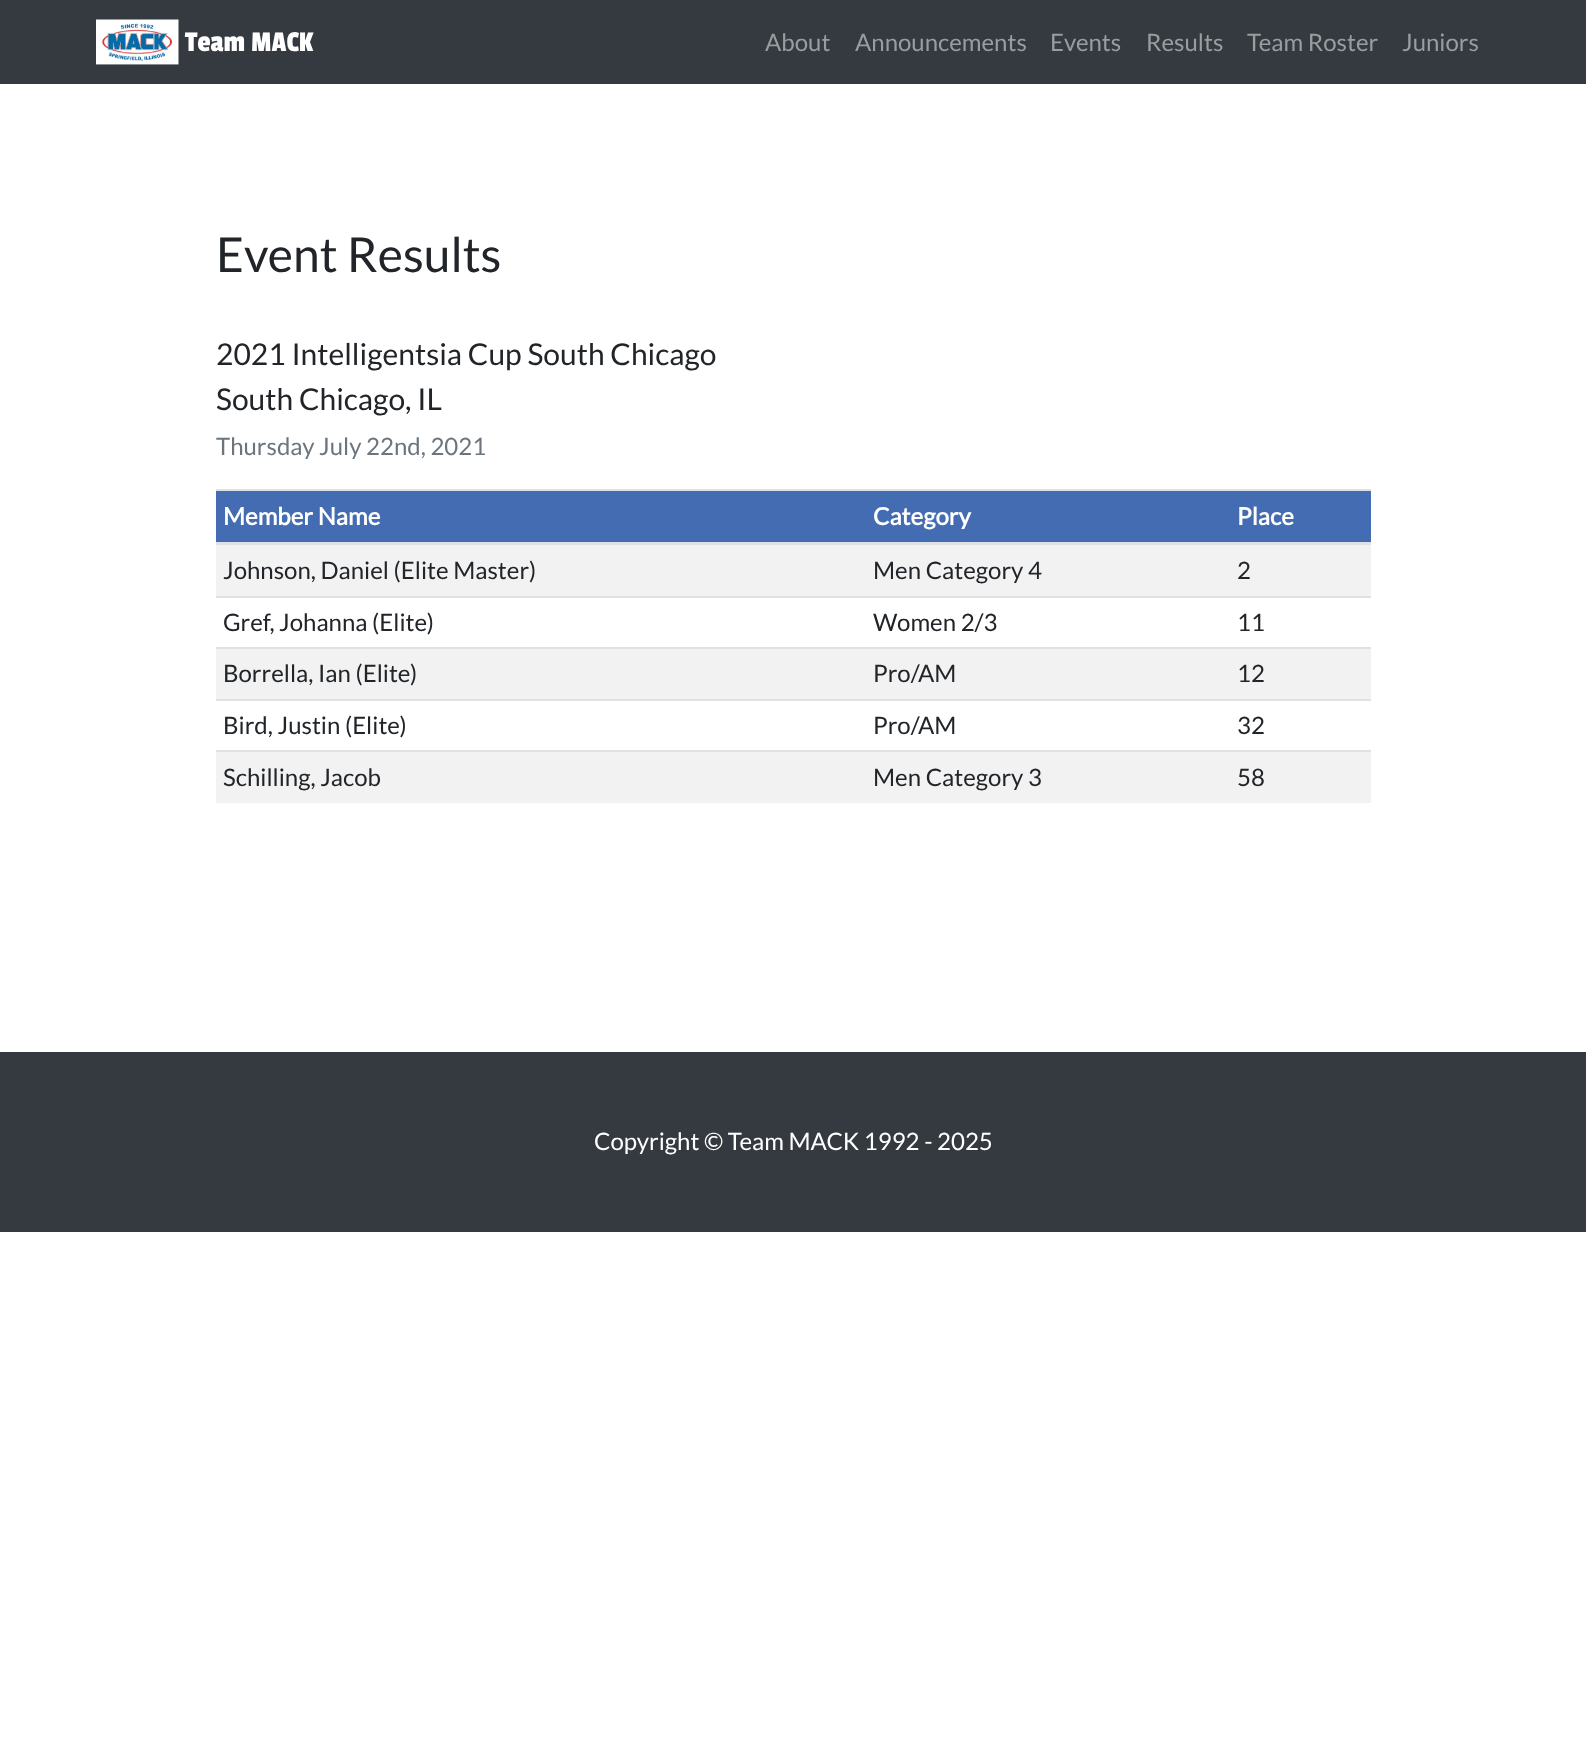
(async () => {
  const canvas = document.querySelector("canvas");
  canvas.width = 1586;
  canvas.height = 1759;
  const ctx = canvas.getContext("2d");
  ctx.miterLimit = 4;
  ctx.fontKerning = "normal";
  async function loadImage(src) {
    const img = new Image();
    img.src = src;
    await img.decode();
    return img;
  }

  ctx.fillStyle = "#ffffff";
  ctx.fillRect(0, 0, 1586, 1759);
  ctx.fillStyle = "#343a40";
  ctx.fillRect(0, 0, 1586, 84);
  ctx.drawImage(await loadImage("img/1.png"), 96, 19, 83, 46);
  for (const [x, y, w, h, color] of [
    [216, 491, 1155, 51, "#446cb3"],
    [216, 489, 1155, 2, "#dee2e6"],
    [216, 542, 1155, 3, "#dee2e6"],
    [216, 545, 1155, 51, "#f2f2f2"],
    [216, 596, 1155, 2, "#dee2e6"],
    [216, 649, 1155, 50, "#f2f2f2"],
    [216, 647, 1155, 2, "#dee2e6"],
    [216, 699, 1155, 2, "#dee2e6"],
    [216, 752, 1155, 51, "#f2f2f2"],
    [216, 750, 1155, 2, "#dee2e6"],
    [0, 1052, 1586, 180, "#343a40"],
  ]) {
    ctx.fillStyle = color;
    ctx.fillRect(x, y, w, h);
  }
  ctx.font = "30px Passion One";
  ctx.fillStyle = "#ffffff";
  ctx.fillText("Team MACK", 185, 51);
  ctx.font = "24px Lato";
  ctx.fillStyle = "#9a9da0";
  for (const [text, x, y] of [
    ["About", 765, 51],
    ["Announcements", 855, 51],
    ["Events", 1050, 51],
    ["Results", 1146, 51],
    ["Team Roster", 1247, 51],
    ["Juniors", 1402, 51],
  ]) {
    ctx.fillText(text, x, y);
  }
  ctx.font = "48px Lato";
  ctx.fillStyle = "#212529";
  ctx.fillText("Event Results", 216, 272);
  ctx.font = "30px Lato";
  ctx.fillText("2021 Intelligentsia Cup South Chicago", 216, 365);
  ctx.fillText("South Chicago, IL", 216, 410);
  ctx.font = "24px Lato";
  ctx.fillStyle = "#6c757d";
  ctx.fillText("Thursday July 22nd, 2021", 216, 455);
  ctx.font = "bold 24px Lato";
  ctx.fillStyle = "#ffffff";
  for (const [text, x, y] of [
    ["Member Name", 223, 525],
    ["Category", 873, 525],
    ["Place", 1237, 525],
  ]) {
    ctx.fillText(text, x, y);
  }
  ctx.font = "24px Lato";
  ctx.fillStyle = "#212529";
  for (const [text, x, y] of [
    ["Johnson, Daniel (Elite Master)", 223, 579],
    ["Men Category 4", 873, 579],
    ["2", 1237, 579],
    ["Gref, Johanna (Elite)", 223, 631],
    ["Women 2/3", 873, 631],
    ["11", 1237, 631],
    ["Borrella, Ian (Elite)", 223, 682],
    ["Pro/AM", 873, 682],
    ["12", 1237, 682],
    ["Bird, Justin (Elite)", 223, 734],
    ["Pro/AM", 873, 734],
    ["32", 1237, 734],
    ["Schilling, Jacob", 223, 786],
    ["Men Category 3", 873, 786],
    ["58", 1237, 786],
  ]) {
    ctx.fillText(text, x, y);
  }
  ctx.fillStyle = "#ffffff";
  ctx.fillText("Copyright © Team MACK 1992 - 2025", 594, 1150);
})();
